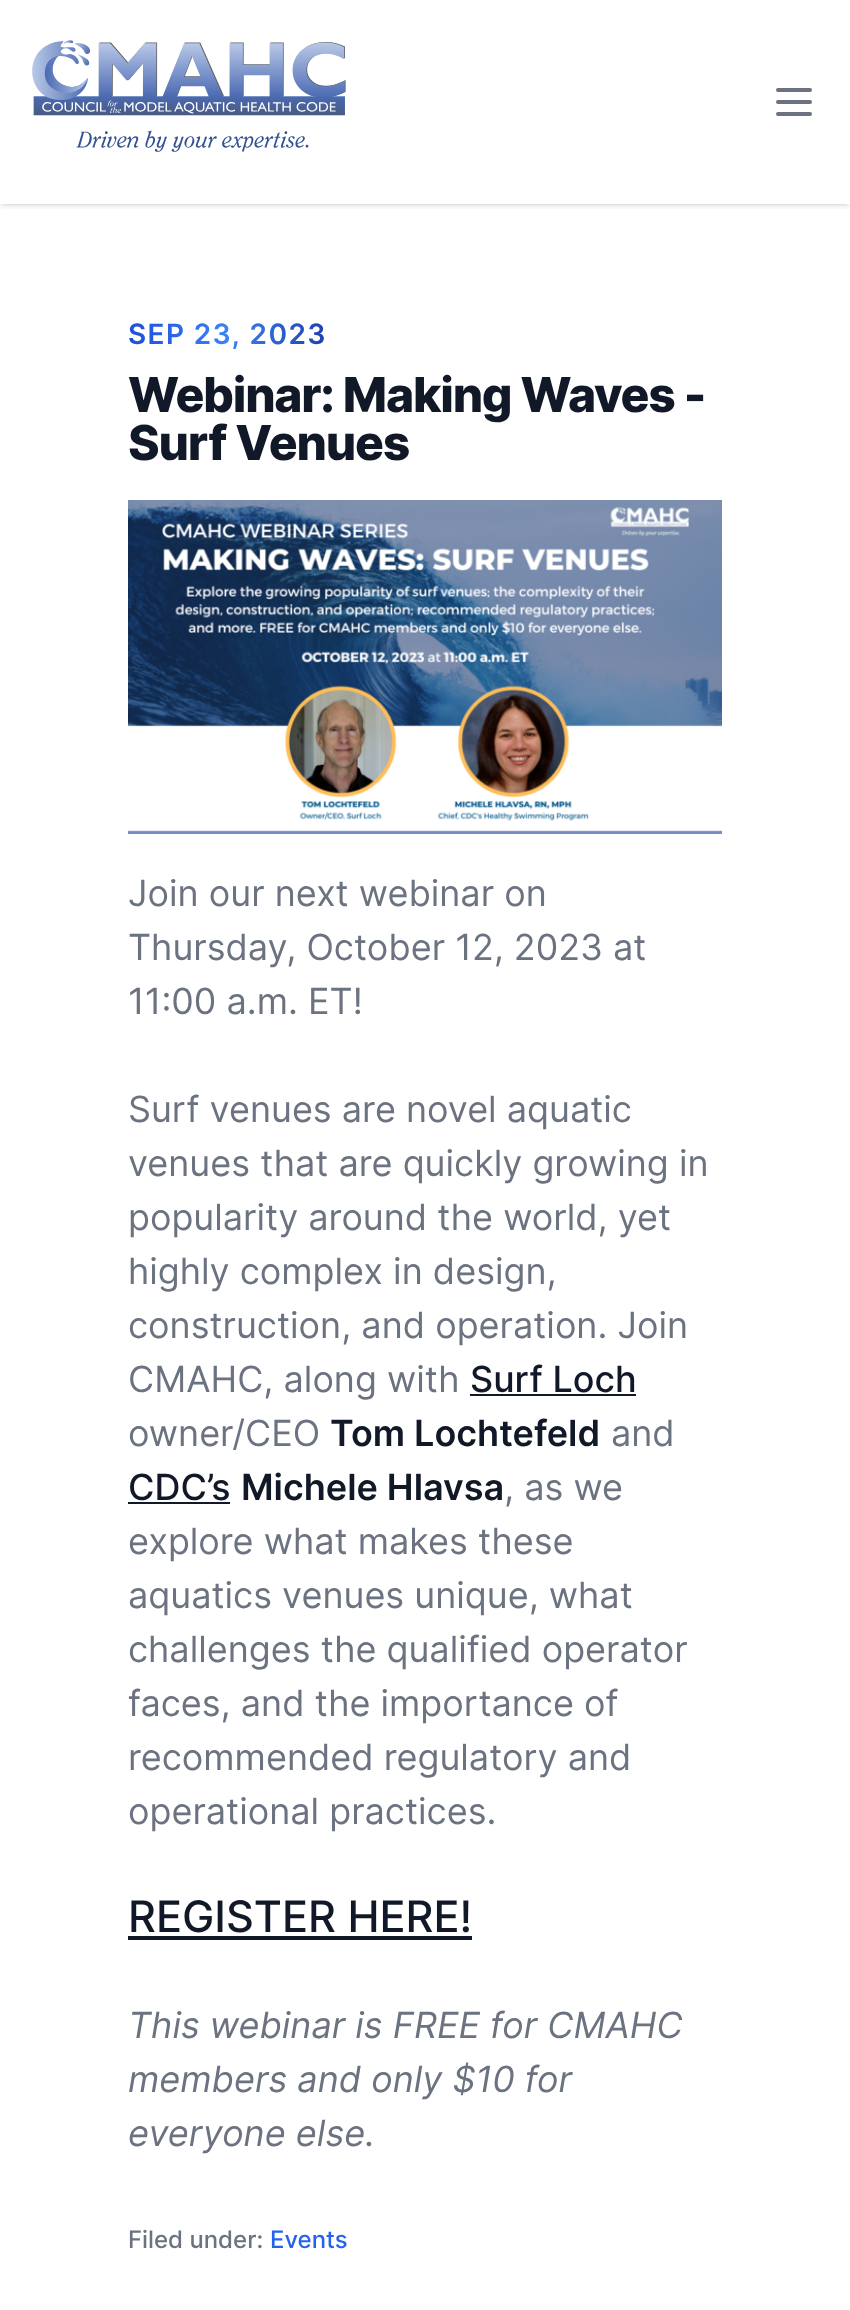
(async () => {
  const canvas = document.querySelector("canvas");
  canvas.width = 850;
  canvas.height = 2310;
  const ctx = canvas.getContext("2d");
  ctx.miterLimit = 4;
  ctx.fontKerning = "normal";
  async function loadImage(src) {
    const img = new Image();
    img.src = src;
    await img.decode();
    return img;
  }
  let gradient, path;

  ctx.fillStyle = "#ffffff";
  ctx.fillRect(0, 0, 850, 2310);
  ctx.save();
  ctx.beginPath();
  ctx.rect(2, 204, 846, 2);
  ctx.clip();
  ctx.fillStyle = "rgba(0, 0, 0, 0.1)";
  ctx.filter = "blur(2px)";
  ctx.beginPath();
  ctx.rect(2, 4, 846, 200);
  ctx.fill();
  ctx.filter = "none";
  ctx.restore();
  ctx.save();
  ctx.beginPath();
  ctx.rect(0, 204, 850, 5);
  ctx.clip();
  ctx.fillStyle = "rgba(0, 0, 0, 0.1)";
  ctx.filter = "blur(3px)";
  ctx.beginPath();
  ctx.rect(0, 2, 850, 204);
  ctx.fill();
  ctx.filter = "none";
  ctx.restore();
  ctx.drawImage(await loadImage("img/1.png"), 32, 40, 314, 112);
  path = new Path2D("M778 90H810M778 102H810M778 114H810");
  ctx.strokeStyle = "#6b7280";
  ctx.lineWidth = 4;
  ctx.lineCap = "round";
  ctx.lineJoin = "round";
  ctx.stroke(path);
  ctx.drawImage(await loadImage("img/2.png"), 128, 500, 594, 334);
  for (const [x, y, w, h, color] of [
    [470, 1394, 166, 2, "#111827"],
    [128, 1502, 102, 2, "#111827"],
    [128, 1936, 344, 4, "#111827"],
  ]) {
    ctx.fillStyle = color;
    ctx.fillRect(x, y, w, h);
  }
  ctx.letterSpacing = "1.4px";
  ctx.font = "600 28px Inter";
  gradient = ctx.createLinearGradient(128, 333, 327, 333);
  gradient.addColorStop(0, "#1d4ed8");
  gradient.addColorStop(0.5, "#3b82f6");
  gradient.addColorStop(1, "#1e40af");
  ctx.fillStyle = gradient;
  ctx.fillText("SEP 23, 2023", 128, 344);
  ctx.letterSpacing = "-1.2px";
  ctx.font = "800 48px Inter";
  ctx.fillStyle = "#111827";
  ctx.fillText("Webinar: Making Waves -", 128, 412);
  ctx.fillText("Surf Venues", 128, 460);
  ctx.letterSpacing = "0px";
  ctx.font = "36px Inter";
  ctx.fillStyle = "#6b7280";
  for (const [text, x, y] of [
    ["Join our next webinar on", 128, 906],
    ["Thursday, October 12, 2023 at", 128, 960],
    ["11:00 a.m. ET!", 128, 1014],
    ["Surf venues are novel aquatic", 128, 1122],
    ["venues that are quickly growing in", 128, 1176],
    ["popularity around the world, yet", 128, 1230],
    ["highly complex in design,", 128, 1284],
    ["construction, and operation. Join", 128, 1338],
    ["CMAHC, along with", 128, 1392],
  ]) {
    ctx.fillText(text, x, y);
  }
  ctx.font = "500 36px Inter";
  ctx.fillStyle = "#111827";
  ctx.fillText("Surf Loch", 470, 1392);
  ctx.font = "36px Inter";
  ctx.fillStyle = "#6b7280";
  ctx.fillText("owner/CEO", 128, 1446);
  ctx.font = "600 36px Inter";
  ctx.fillStyle = "#111827";
  ctx.fillText("Tom Lochtefeld", 330, 1446);
  ctx.font = "36px Inter";
  ctx.fillStyle = "#6b7280";
  ctx.fillText("and", 611, 1446);
  ctx.font = "500 36px Inter";
  ctx.fillStyle = "#111827";
  ctx.fillText("CDC’s", 128, 1500);
  ctx.font = "600 36px Inter";
  ctx.fillText("Michele Hlavsa", 241, 1500);
  ctx.font = "36px Inter";
  ctx.fillStyle = "#6b7280";
  for (const [text, x, y] of [
    [", as we", 504, 1500],
    ["explore what makes these", 128, 1554],
    ["aquatics venues unique, what", 128, 1608],
    ["challenges the qualified operator", 128, 1662],
    ["faces, and the importance of", 128, 1716],
    ["recommended regulatory and", 128, 1770],
    ["operational practices.", 128, 1824],
  ]) {
    ctx.fillText(text, x, y);
  }
  ctx.font = "500 43.25px Inter";
  ctx.fillStyle = "#111827";
  ctx.fillText("REGISTER HERE!", 128, 1932);
  ctx.font = "italic 36px Inter";
  ctx.fillStyle = "#6b7280";
  for (const [text, x, y] of [
    ["This webinar is FREE for CMAHC", 128, 2038],
    ["members and only $10 for", 128, 2092],
    ["everyone else.", 128, 2146],
  ]) {
    ctx.fillText(text, x, y);
  }
  ctx.font = "500 24px Inter";
  ctx.fillText("Filed under:", 128, 2248);
  ctx.fillStyle = "#2563eb";
  ctx.fillText("Events", 270, 2248);
})();
